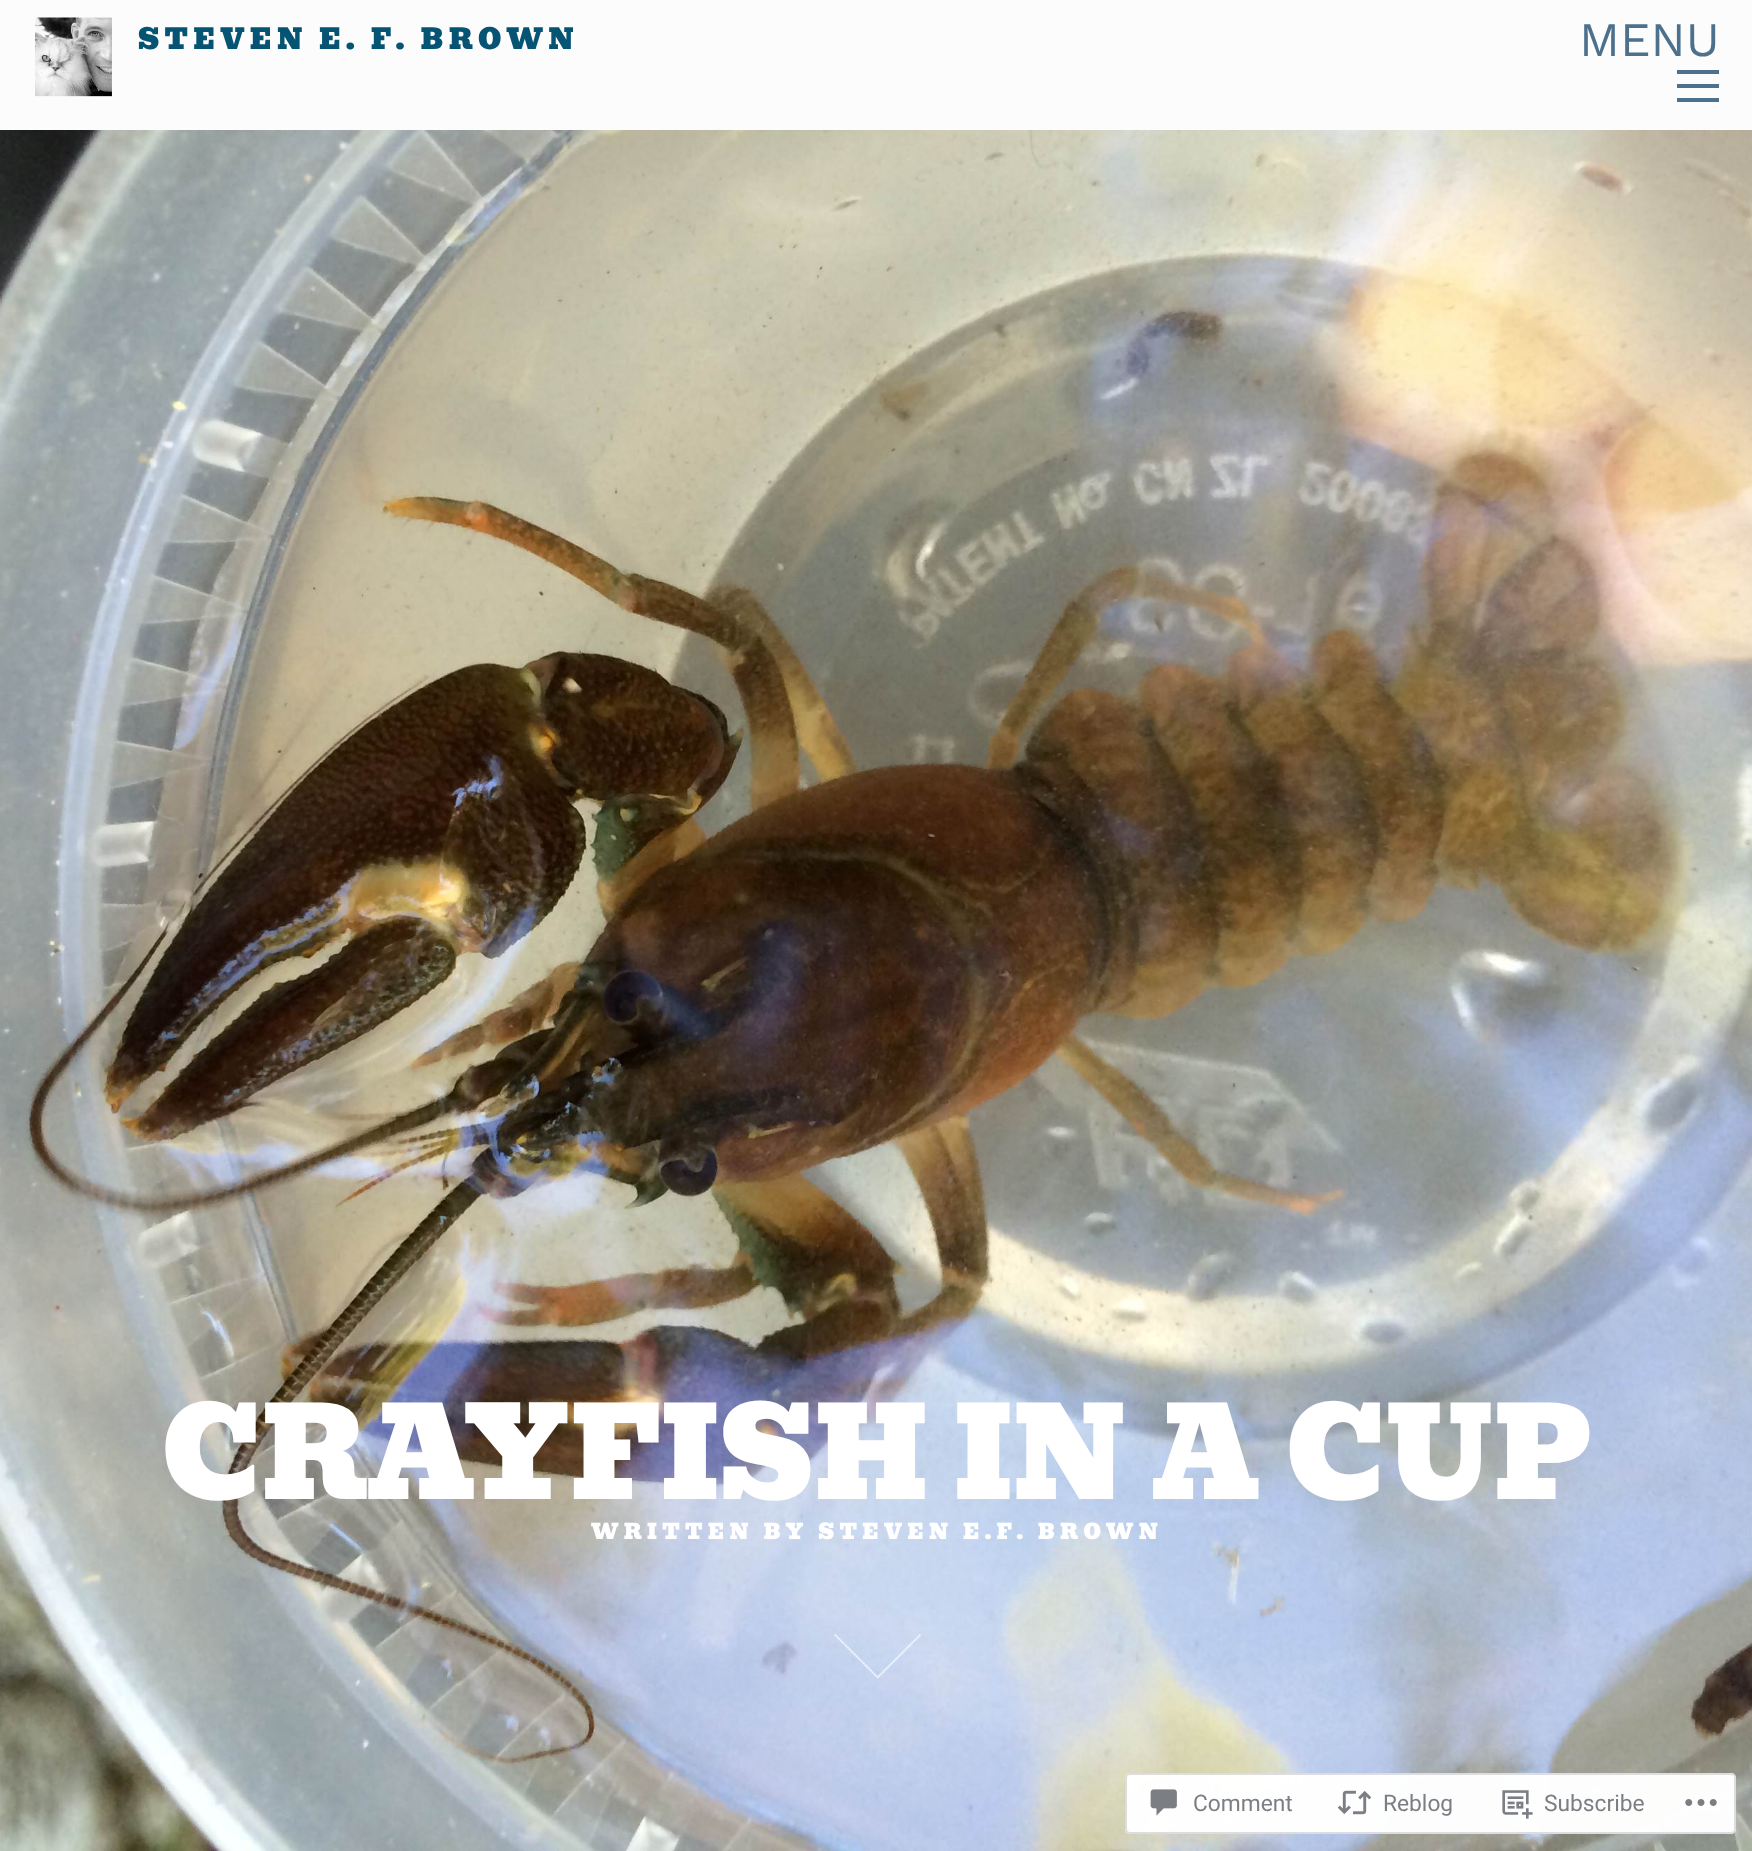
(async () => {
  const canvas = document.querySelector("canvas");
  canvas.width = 1752;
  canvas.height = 1851;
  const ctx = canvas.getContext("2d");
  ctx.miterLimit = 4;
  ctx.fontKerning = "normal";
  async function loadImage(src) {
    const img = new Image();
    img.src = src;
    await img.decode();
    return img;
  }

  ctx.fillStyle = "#ffffff";
  ctx.fillRect(0, 0, 1752, 1851);
  ctx.fillStyle = "#fcfcfc";
  ctx.fillRect(0, 0, 1752, 130);
  ctx.drawImage(await loadImage("img/1.png"), 35, 17, 77, 80);
  for (const [x, y, w, h, color] of [
    [1677, 70, 42, 4, "#4d718d"],
    [1677, 84, 42, 4, "#4d718d"],
    [1677, 98, 42, 4, "#4d718d"],
  ]) {
    ctx.fillStyle = color;
    ctx.fillRect(x, y, w, h);
  }
  ctx.drawImage(await loadImage("img/2.png"), 0, 130, 1752, 1721);
  ctx.drawImage(await loadImage("img/3.png"), 834, 1634, 87, 45);
  ctx.fillStyle = "rgba(255, 255, 255, 0.98)";
  ctx.beginPath();
  ctx.roundRect(1125, 1773, 611, 61, 5);
  ctx.fill();
  ctx.beginPath();
  ctx.roundRect(1126, 1774, 609, 59, 4);
  ctx.strokeStyle = "rgba(220, 220, 222, 0.98)";
  ctx.lineWidth = 2;
  ctx.stroke();
  ctx.drawImage(await loadImage("img/4.png"), 1150, 1789, 27, 27);
  ctx.drawImage(await loadImage("img/5.png"), 1337, 1790, 35, 25);
  ctx.drawImage(await loadImage("img/6.png"), 1502, 1790, 31, 29);
  ctx.drawImage(await loadImage("img/7.png"), 1685, 1799, 32, 7);
  ctx.letterSpacing = "5.25px";
  ctx.font = "28px Bevan";
  ctx.fillStyle = "#065473";
  ctx.fillText("STEVEN E. F. BROWN", 138, 49);
  ctx.letterSpacing = "0px";
  ctx.font = "48px Work Sans";
  ctx.fillStyle = "#4d718d";
  ctx.fillText("MENU", 1579, 56);
  ctx.font = "124.25px Bevan";
  ctx.fillStyle = "#ffffff";
  ctx.fillText("CRAYFISH IN A CUP", 161, 1499);
  ctx.letterSpacing = "5.25px";
  ctx.font = "21px Bevan";
  ctx.fillText("WRITTEN BY STEVEN E.F. BROWN", 591, 1539);
  ctx.letterSpacing = "0px";
  ctx.font = "22.75px Roboto";
  ctx.fillStyle = "#7b7f84";
  for (const [text, x, y] of [
    ["Comment", 1193, 1811],
    ["Reblog", 1383, 1811],
    ["Subscribe", 1544, 1811],
  ]) {
    ctx.fillText(text, x, y);
  }
})();
